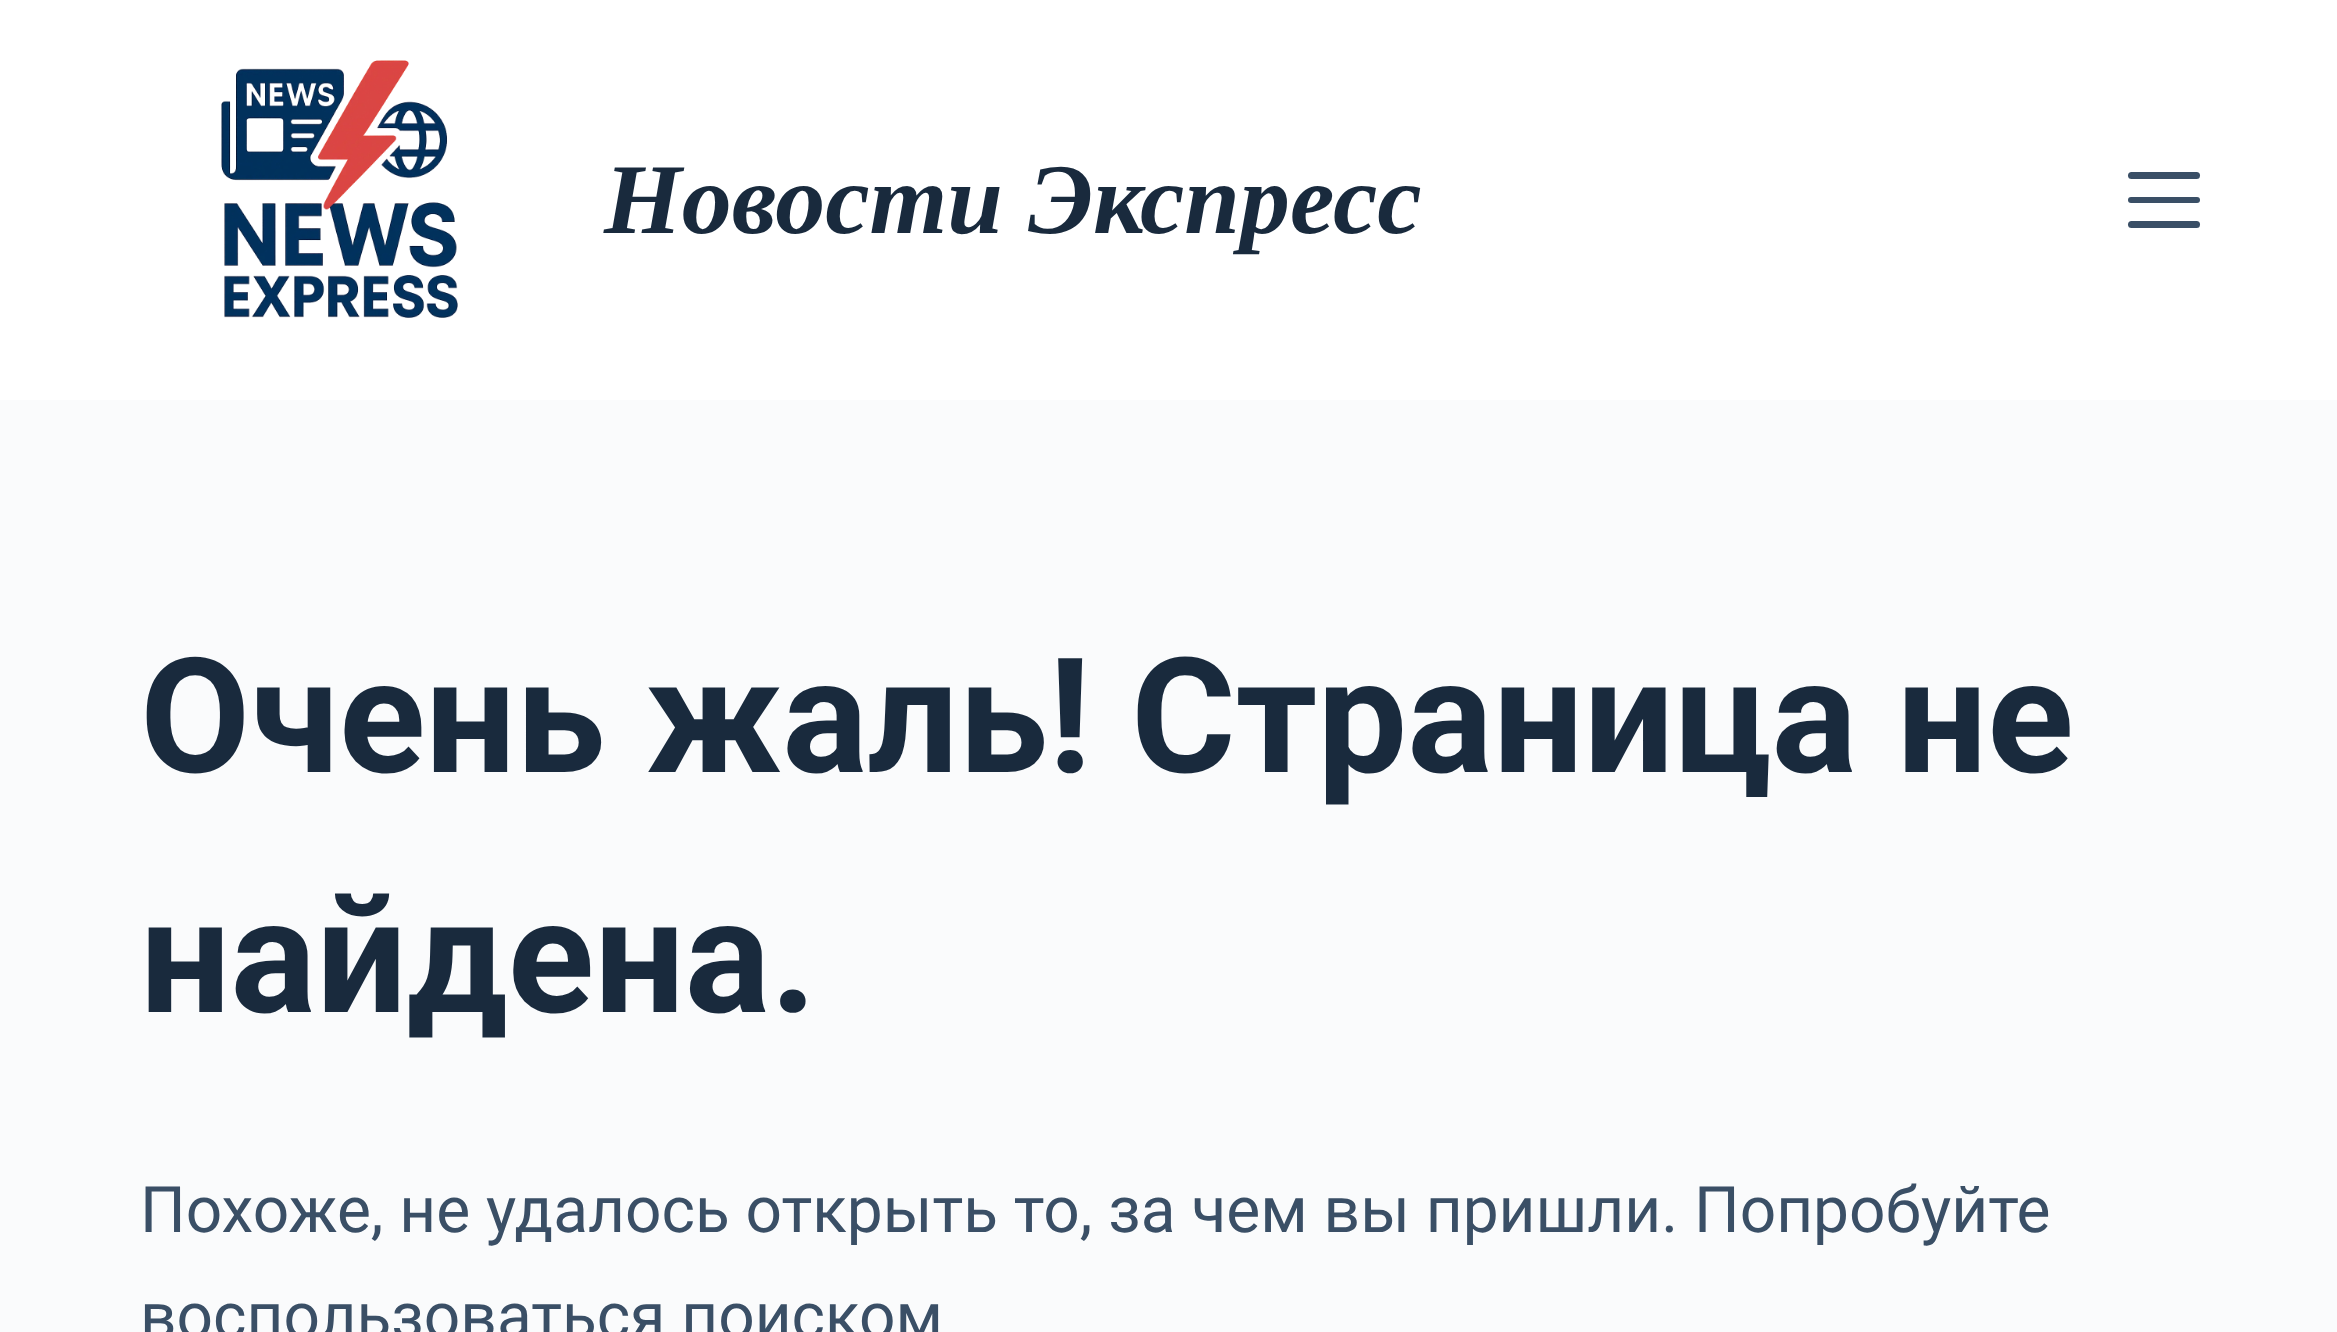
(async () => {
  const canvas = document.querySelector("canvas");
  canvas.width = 2337;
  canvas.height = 1332;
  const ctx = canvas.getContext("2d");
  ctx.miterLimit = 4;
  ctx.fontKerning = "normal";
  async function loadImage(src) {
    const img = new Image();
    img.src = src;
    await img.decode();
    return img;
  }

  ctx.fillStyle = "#fafbfc";
  ctx.fillRect(0, 0, 2337, 1332);
  ctx.fillStyle = "#ffffff";
  ctx.fillRect(0, 0, 2337, 400);
  ctx.drawImage(await loadImage("img/1.png"), 221, 60, 237, 258);
  ctx.fillStyle = "#3a4f66";
  ctx.beginPath();
  ctx.roundRect(2128, 172, 72, 7, 3.5);
  ctx.fill();
  ctx.beginPath();
  ctx.roundRect(2128, 197, 72, 6, 3);
  ctx.fill();
  ctx.beginPath();
  ctx.roundRect(2128, 221, 72, 7, 3.5);
  ctx.fill();
  ctx.font = "italic bold 100px Liberation Serif";
  ctx.fillStyle = "#192a3d";
  ctx.fillText("Новости Экспресс", 604, 233);
  ctx.font = "bold 160px Roboto";
  ctx.fillText("Очень жаль! Страница не", 140, 772);
  ctx.fillText("найдена.", 140, 1012);
  ctx.font = "64px Roboto";
  ctx.fillStyle = "#3a4f66";
  ctx.fillText("Похоже, не удалось открыть то, за чем вы пришли. Попробуйте", 140, 1232);
  ctx.fillText("воспользоваться поиском", 140, 1338);
})();
